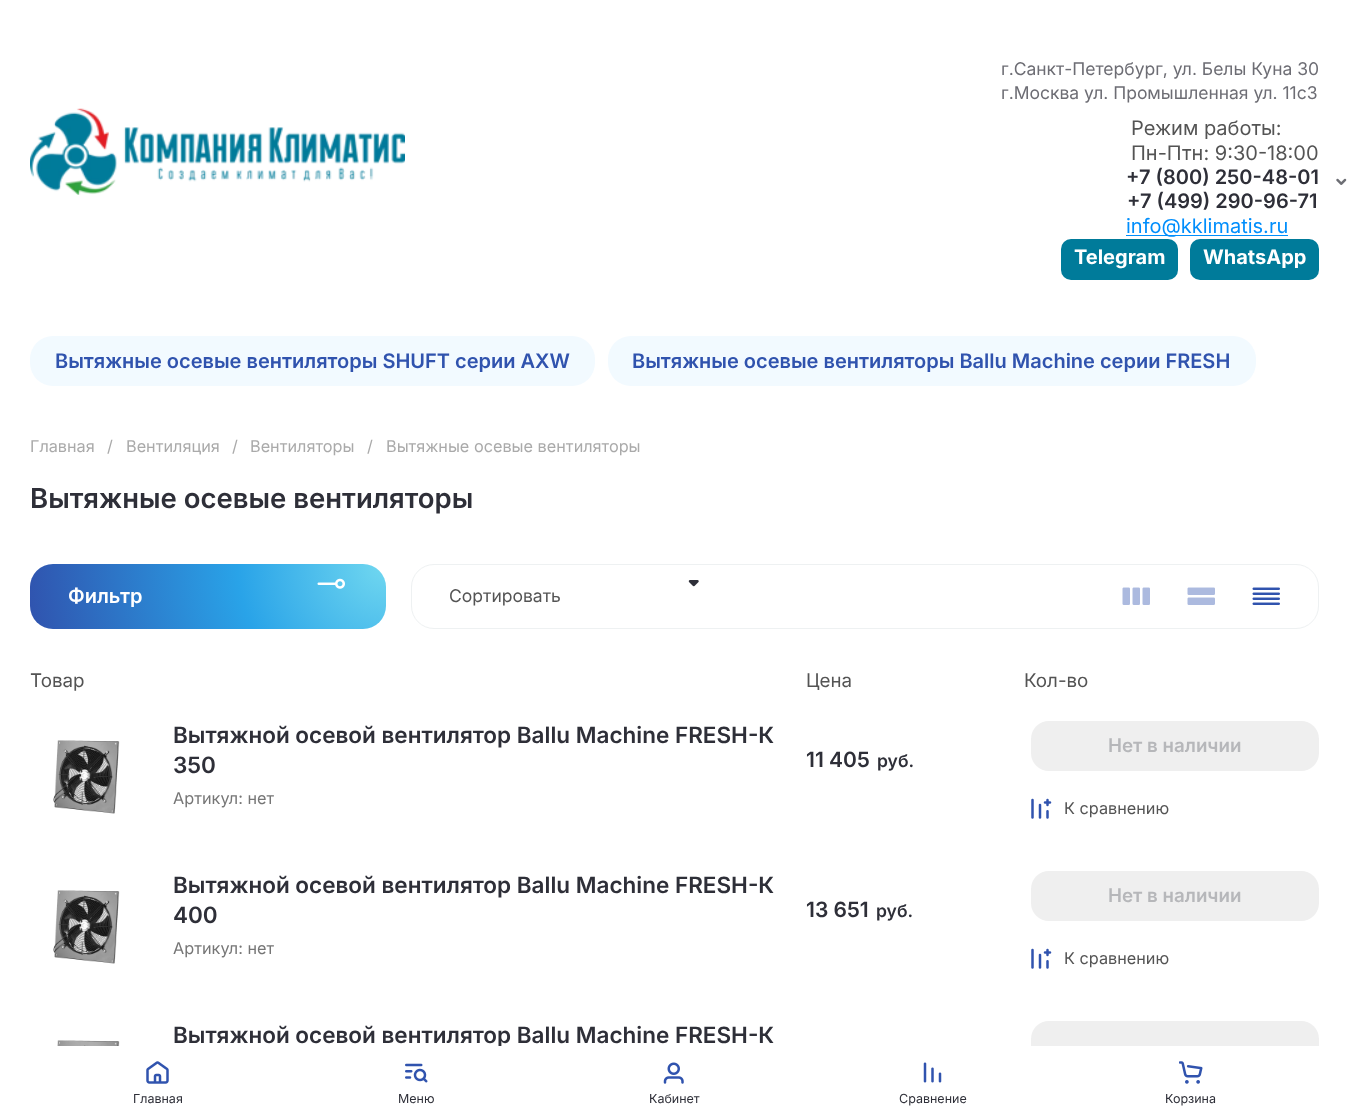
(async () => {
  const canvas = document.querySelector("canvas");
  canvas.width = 1348;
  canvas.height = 1117;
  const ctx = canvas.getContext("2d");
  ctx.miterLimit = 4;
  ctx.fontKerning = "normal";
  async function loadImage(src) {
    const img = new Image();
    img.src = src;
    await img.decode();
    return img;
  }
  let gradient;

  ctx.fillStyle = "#ffffff";
  ctx.fillRect(0, 0, 1348, 1117);
  ctx.drawImage(await loadImage("img/1.png"), 30, 108, 375, 87);
  ctx.drawImage(await loadImage("img/2.png"), 1336, 178, 11, 7);
  ctx.fillStyle = "#008efc";
  ctx.fillRect(1126, 235, 162, 1);
  ctx.fillStyle = "#007b9a";
  ctx.beginPath();
  ctx.roundRect(1061, 239, 117, 41, 10);
  ctx.fill();
  ctx.beginPath();
  ctx.roundRect(1190, 239, 129, 41, 10);
  ctx.fill();
  ctx.fillStyle = "#f2faff";
  ctx.beginPath();
  ctx.roundRect(30, 336, 565, 50, 23);
  ctx.fill();
  ctx.beginPath();
  ctx.roundRect(608, 336, 648, 50, 23);
  ctx.fill();
  gradient = ctx.createRadialGradient(386, 564, 0, 386, 564, 362);
  gradient.addColorStop(0, "#71d8f0");
  gradient.addColorStop(0.41, "#29a3e8");
  gradient.addColorStop(1, "#3053ae");
  ctx.fillStyle = gradient;
  ctx.beginPath();
  ctx.roundRect(30, 564, 356, 65, 23);
  ctx.fill();
  ctx.drawImage(await loadImage("img/3.png"), 317, 578, 28, 11);
  ctx.beginPath();
  ctx.roundRect(411.5, 564.5, 907, 64, 22.5);
  ctx.strokeStyle = "#eef1f2";
  ctx.stroke();
  ctx.drawImage(await loadImage("img/4.png"), 688, 580, 11, 7);
  ctx.drawImage(await loadImage("img/5.png"), 1122, 587, 28, 18);
  ctx.drawImage(await loadImage("img/6.png"), 1187, 587, 28, 18);
  ctx.drawImage(await loadImage("img/7.png"), 1252, 587, 28, 18);
  ctx.drawImage(await loadImage("img/8.png"), 53, 740, 67, 74);
  ctx.fillStyle = "#efefef";
  ctx.beginPath();
  ctx.roundRect(1031, 721, 288, 50, 18);
  ctx.fill();
  ctx.drawImage(await loadImage("img/9.png"), 1031, 798, 21, 21);
  ctx.drawImage(await loadImage("img/8.png"), 53, 890, 67, 74);
  ctx.beginPath();
  ctx.roundRect(1031, 871, 288, 50, 18);
  ctx.fill();
  ctx.drawImage(await loadImage("img/9.png"), 1031, 948, 21, 21);
  ctx.drawImage(await loadImage("img/10.png"), 57, 1040, 63, 6);
  ctx.beginPath();
  ctx.roundRect(1031, 1021, 288, 50, 18);
  ctx.fill();
  ctx.drawImage(await loadImage("img/11.png"), 146, 1061, 23, 23);
  ctx.drawImage(await loadImage("img/12.png"), 405, 1063, 23, 20);
  ctx.font = "17.5px Inter";
  ctx.fillStyle = "#6d6d74";
  ctx.fillText("г.Санкт-Петербург, ул. Белы Куна 30", 1001, 75);
  ctx.fillText("г.Москва ул. Промышленная ул. 11с3", 1001, 99);
  ctx.font = "20px Inter";
  ctx.fillStyle = "#545454";
  ctx.fillText("Режим работы:", 1131, 135);
  ctx.fillText("Пн-Птн: 9:30-18:00", 1131, 160);
  ctx.font = "600 20px Inter";
  ctx.fillStyle = "#2e2f38";
  ctx.fillText("+7 (800) 250-48-01", 1126, 184);
  ctx.fillText("+7 (499) 290-96-71", 1127, 208);
  ctx.font = "20px Inter";
  ctx.fillStyle = "#008efc";
  ctx.fillText("info@kklimatis.ru", 1126, 233);
  ctx.font = "bold 20px Inter";
  ctx.fillStyle = "#ffffff";
  ctx.fillText("Telegram", 1074, 264);
  ctx.fillText("WhatsApp", 1203, 264);
  ctx.font = "600 20px Inter";
  ctx.fillStyle = "#3053ae";
  ctx.fillText("Вытяжные осевые вентиляторы SHUFT серии AXW", 55, 368);
  ctx.fillText("Вытяжные осевые вентиляторы Ballu Machine серии FRESH", 632, 368);
  ctx.font = "16.25px Inter";
  ctx.fillStyle = "#aaaaaa";
  for (const [text, x, y] of [
    ["Главная", 30, 452],
    ["/", 107, 452],
    ["Вентиляция", 126, 452],
    ["/", 232, 452],
    ["Вентиляторы", 250, 452],
    ["/", 367, 452],
    ["Вытяжные осевые вентиляторы", 386, 452],
  ]) {
    ctx.fillText(text, x, y);
  }
  ctx.font = "600 27.5px Inter";
  ctx.fillStyle = "#2e2f38";
  ctx.fillText("Вытяжные осевые вентиляторы", 30, 508);
  ctx.font = "600 20px Inter";
  ctx.fillStyle = "#ffffff";
  ctx.fillText("Фильтр", 68, 603);
  ctx.font = "17.5px Inter";
  ctx.fillStyle = "#545454";
  ctx.fillText("Сортировать", 449, 602);
  ctx.font = "18.75px Inter";
  for (const [text, x, y] of [
    ["Товар", 30, 687],
    ["Цена", 806, 687],
    ["Кол-во", 1024, 687],
  ]) {
    ctx.fillText(text, x, y);
  }
  ctx.font = "600 22.5px Inter";
  ctx.fillStyle = "#2e2f38";
  ctx.fillText("Вытяжной осевой вентилятор Ballu Machine FRESH-К", 173, 743);
  ctx.fillText("350", 173, 773);
  ctx.font = "16.25px Inter";
  ctx.fillStyle = "#767676";
  ctx.fillText("Артикул: нет", 173, 804);
  ctx.font = "600 18.75px Inter";
  ctx.fillStyle = "#b6b7ba";
  ctx.fillText("Нет в наличии", 1108, 752);
  ctx.font = "600 21px Inter";
  ctx.fillStyle = "#2e2f38";
  ctx.fillText("11 405", 806, 767);
  ctx.font = "600 17.5px Inter";
  ctx.fillText("руб.", 877, 767);
  ctx.font = "16.25px Inter";
  ctx.fillStyle = "#545454";
  ctx.fillText("К сравнению", 1064, 814);
  ctx.font = "600 22.5px Inter";
  ctx.fillStyle = "#2e2f38";
  ctx.fillText("Вытяжной осевой вентилятор Ballu Machine FRESH-К", 173, 893);
  ctx.fillText("400", 173, 923);
  ctx.font = "16.25px Inter";
  ctx.fillStyle = "#767676";
  ctx.fillText("Артикул: нет", 173, 954);
  ctx.font = "600 18.75px Inter";
  ctx.fillStyle = "#b6b7ba";
  ctx.fillText("Нет в наличии", 1108, 902);
  ctx.font = "600 21px Inter";
  ctx.fillStyle = "#2e2f38";
  ctx.fillText("13 651", 806, 917);
  ctx.font = "600 17.5px Inter";
  ctx.fillText("руб.", 876, 917);
  ctx.font = "16.25px Inter";
  ctx.fillStyle = "#545454";
  ctx.fillText("К сравнению", 1064, 964);
  ctx.font = "600 22.5px Inter";
  ctx.fillStyle = "#2e2f38";
  ctx.fillText("Вытяжной осевой вентилятор Ballu Machine FRESH-К", 173, 1043);
  ctx.fillStyle = "#ffffff";
  ctx.fillRect(498, 1046, 821, 25);
  ctx.font = "12.5px Inter";
  ctx.fillStyle = "#2e2f38";
  ctx.fillText("Главная", 133, 1103);
  ctx.fillText("Меню", 398, 1103);
  ctx.drawImage(await loadImage("img/13.png"), 663, 1062, 21, 22);
  ctx.fillText("Кабинет", 649, 1103);
  ctx.drawImage(await loadImage("img/14.png"), 923, 1062, 19, 21);
  ctx.fillText("Сравнение", 899, 1103);
  ctx.drawImage(await loadImage("img/15.png"), 1179, 1061, 24, 23);
  ctx.fillText("Корзина", 1165, 1103);
})();
